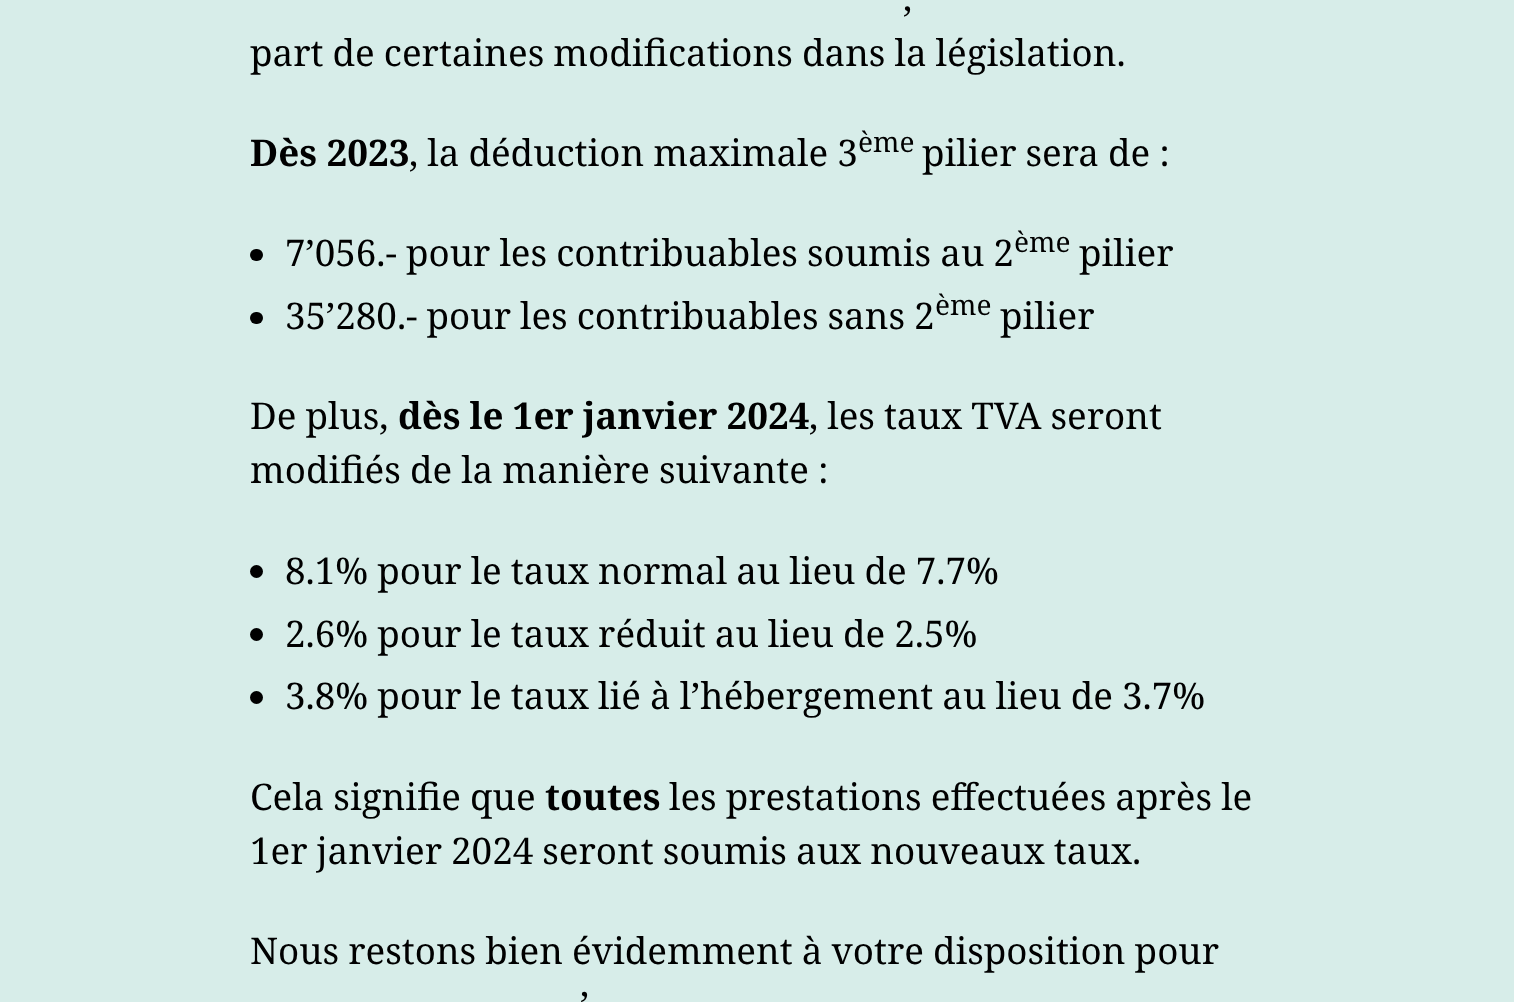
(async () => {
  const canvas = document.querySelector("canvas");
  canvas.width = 1514;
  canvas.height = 1002;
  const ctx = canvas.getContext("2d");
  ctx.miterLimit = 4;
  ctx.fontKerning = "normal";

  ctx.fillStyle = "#d7ede9";
  ctx.fillRect(0, 0, 1514, 1002);
  ctx.fillStyle = "#000000";
  ctx.beginPath();
  ctx.roundRect(250, 249, 13, 12, 6);
  ctx.fill();
  ctx.beginPath();
  ctx.roundRect(250, 312, 13, 12, 6);
  ctx.fill();
  ctx.beginPath();
  ctx.arc(256.5, 571.5, 6.5, 0, Math.PI * 2);
  ctx.fill();
  ctx.beginPath();
  ctx.arc(256.5, 634.5, 6.5, 0, Math.PI * 2);
  ctx.fill();
  ctx.beginPath();
  ctx.arc(256.5, 697.5, 6.5, 0, Math.PI * 2);
  ctx.fill();
  ctx.wordSpacing = "-0.5px";
  ctx.font = "36.75px Noto Serif";
  ctx.fillText(",", 903, 11);
  ctx.fillText("part de certaines modifications dans la législation.", 250, 66);
  ctx.wordSpacing = "0px";
  ctx.font = "bold 36.75px Noto Serif";
  ctx.fillText("Dès 2023", 250, 166);
  ctx.wordSpacing = "-0.5px";
  ctx.font = "36.75px Noto Serif";
  ctx.fillText(", la déduction maximale 3", 409, 166);
  ctx.wordSpacing = "0px";
  ctx.font = "28px Noto Serif";
  ctx.fillText("ème", 858, 152);
  ctx.wordSpacing = "-0.5px";
  ctx.font = "36.75px Noto Serif";
  ctx.fillText("pilier sera de :", 922, 166);
  ctx.fillText("7’056.- pour les contribuables soumis au 2", 285, 266);
  ctx.wordSpacing = "0px";
  ctx.font = "28px Noto Serif";
  ctx.fillText("ème", 1014, 252);
  ctx.font = "36.75px Noto Serif";
  ctx.fillText("pilier", 1079, 266);
  ctx.wordSpacing = "-0.5px";
  ctx.fillText("35’280.- pour les contribuables sans 2", 285, 329);
  ctx.wordSpacing = "0px";
  ctx.font = "28px Noto Serif";
  ctx.fillText("ème", 935, 315);
  ctx.font = "36.75px Noto Serif";
  ctx.fillText("pilier", 1000, 329);
  ctx.wordSpacing = "-0.5px";
  ctx.fillText("De plus,", 250, 429);
  ctx.font = "bold 36.75px Noto Serif";
  ctx.fillText("dès le 1er janvier 2024", 398, 429);
  ctx.font = "36.75px Noto Serif";
  for (const [text, x, y] of [
    [", les taux TVA seront", 809, 429],
    ["modifiés de la manière suivante :", 250, 483],
    ["8.1% pour le taux normal au lieu de 7.7%", 285, 584],
    ["2.6% pour le taux réduit au lieu de 2.5%", 285, 647],
    ["3.8% pour le taux lié à l’hébergement au lieu de 3.7%", 285, 709],
    ["Cela signifie que", 250, 810],
  ]) {
    ctx.fillText(text, x, y);
  }
  ctx.wordSpacing = "0px";
  ctx.font = "bold 36.75px Noto Serif";
  ctx.fillText("toutes", 545, 810);
  ctx.wordSpacing = "-0.5px";
  ctx.font = "36.75px Noto Serif";
  for (const [text, x, y] of [
    ["les prestations effectuées après le", 669, 810],
    ["1er janvier 2024 seront soumis aux nouveaux taux.", 250, 864],
    ["Nous restons bien évidemment à votre disposition pour", 250, 964],
    ["’", 580, 1018],
  ]) {
    ctx.fillText(text, x, y);
  }
})();
